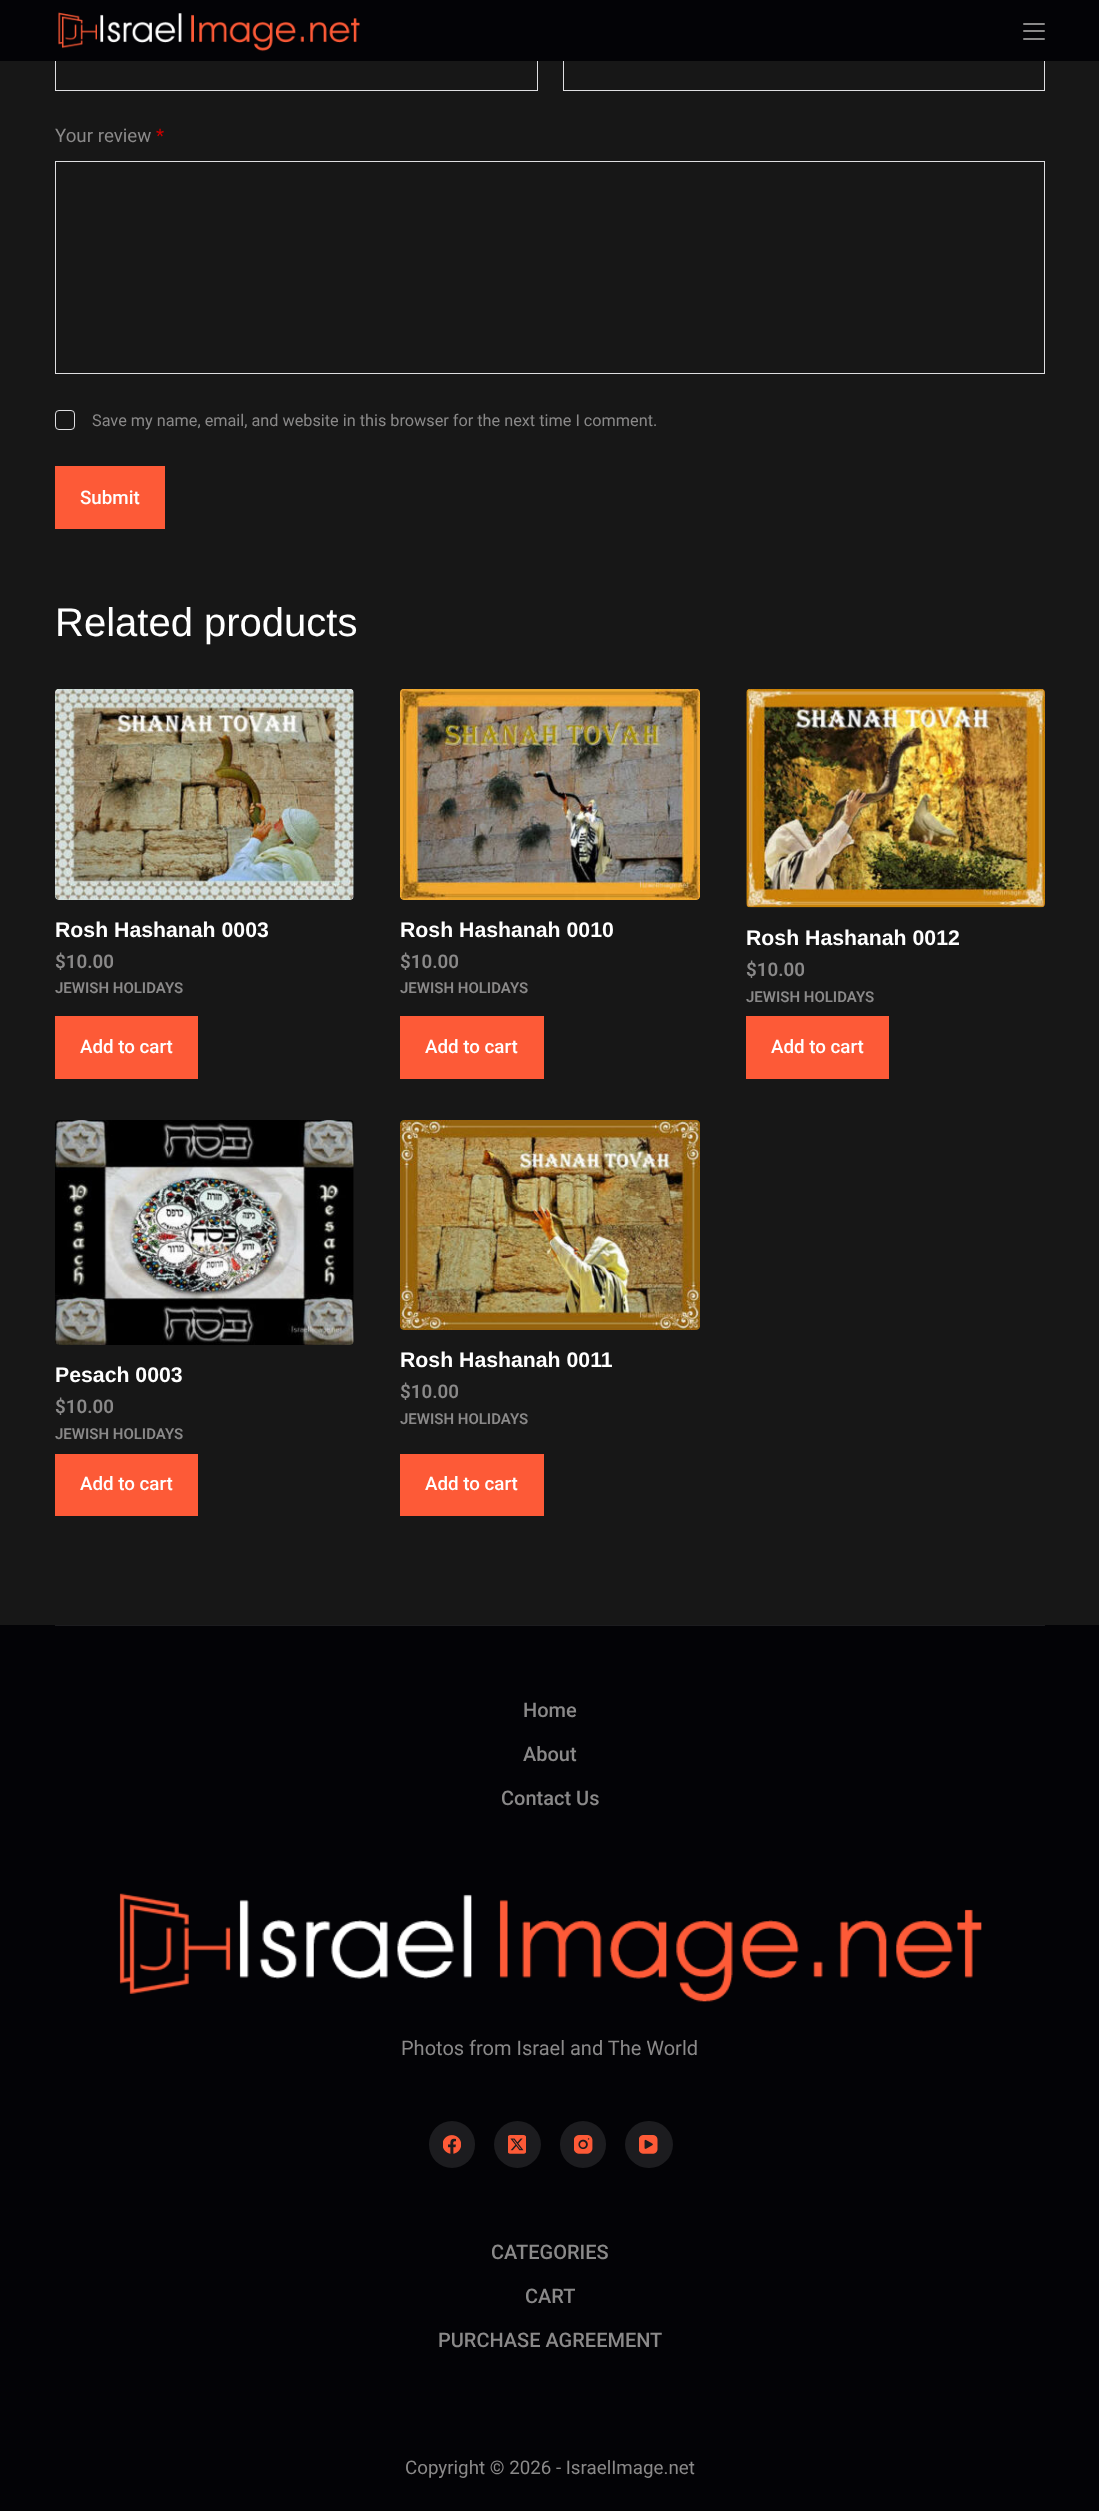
(async () => {
  const canvas = document.querySelector("canvas");
  canvas.width = 1099;
  canvas.height = 2511;
  const ctx = canvas.getContext("2d");
  ctx.miterLimit = 4;
  ctx.fontKerning = "normal";
  async function loadImage(src) {
    const img = new Image();
    img.src = src;
    await img.decode();
    return img;
  }

  ctx.fillStyle = "#171717";
  ctx.fillRect(0, 0, 1099, 2511);
  ctx.strokeStyle = "#dfdfe2";
  ctx.strokeRect(55.5, 29.5, 482, 61);
  ctx.strokeRect(563.5, 29.5, 481, 61);
  ctx.fillStyle = "#030306";
  ctx.fillRect(0, 0, 1099, 61);
  ctx.drawImage(await loadImage("img/1.png"), 58, 12, 302, 40);
  ctx.fillStyle = "#8a8989";
  ctx.beginPath();
  ctx.roundRect(1023, 23, 22, 2, 1);
  ctx.fill();
  ctx.beginPath();
  ctx.roundRect(1023, 30, 22, 2, 1);
  ctx.fill();
  ctx.beginPath();
  ctx.roundRect(1023, 38, 22, 2, 1);
  ctx.fill();
  ctx.strokeRect(55.5, 161.5, 989, 212);
  ctx.beginPath();
  ctx.roundRect(55.5, 410.5, 19, 19, 3.5);
  ctx.stroke();
  ctx.fillStyle = "#fd5a37";
  ctx.fillRect(55, 466, 110, 63);
  ctx.drawImage(await loadImage("img/2.png"), 55, 689, 299, 211);
  ctx.fillRect(55, 1016, 143, 63);
  ctx.drawImage(await loadImage("img/3.png"), 400, 689, 300, 211);
  ctx.fillRect(400, 1016, 144, 63);
  ctx.drawImage(await loadImage("img/4.png"), 746, 689, 299, 219);
  ctx.fillRect(746, 1016, 143, 63);
  ctx.drawImage(await loadImage("img/5.png"), 55, 1120, 299, 225);
  ctx.fillRect(55, 1454, 143, 62);
  ctx.drawImage(await loadImage("img/6.png"), 400, 1120, 300, 210);
  for (const [x, y, w, h, color] of [
    [400, 1454, 144, 62, "#fd5a37"],
    [0, 1625, 1099, 886, "#030306"],
    [55, 1625, 990, 1, "#1c1c1f"],
  ]) {
    ctx.fillStyle = color;
    ctx.fillRect(x, y, w, h);
  }
  ctx.drawImage(await loadImage("img/7.png"), 119, 1893, 863, 109);
  ctx.beginPath();
  ctx.roundRect(429, 2121, 46, 47, 23);
  ctx.fill();
  ctx.drawImage(await loadImage("img/8.png"), 443, 2135, 18, 19);
  ctx.beginPath();
  ctx.arc(517.5, 2144.5, 23.5, 0, Math.PI * 2);
  ctx.fill();
  ctx.drawImage(await loadImage("img/9.png"), 508, 2135, 18, 19);
  ctx.beginPath();
  ctx.roundRect(560, 2121, 46, 47, 23);
  ctx.fill();
  ctx.drawImage(await loadImage("img/10.png"), 574, 2135, 19, 19);
  ctx.beginPath();
  ctx.roundRect(625, 2121, 48, 47, 23.5);
  ctx.fill();
  ctx.drawImage(await loadImage("img/11.png"), 639, 2135, 19, 19);
  ctx.font = "18.75px Roboto";
  ctx.fillStyle = "#8a8989";
  ctx.fillText("Your review", 55, 142);
  ctx.fillStyle = "#cc0000";
  ctx.fillText("*", 156, 142);
  ctx.font = "16.25px Roboto";
  ctx.fillStyle = "#8a8989";
  ctx.fillText("Save my name, email, and website in this browser for the next time I comment.", 92, 426);
  ctx.font = "500 18.75px Roboto";
  ctx.fillStyle = "#ffffff";
  ctx.fillText("Submit", 80, 504);
  ctx.font = "40px Liberation Sans";
  ctx.fillText("Related products", 55, 636);
  ctx.font = "bold 21.25px Liberation Sans";
  ctx.fillText("Rosh Hashanah 0003", 55, 937);
  ctx.font = "600 18.75px Roboto";
  ctx.fillStyle = "#8a8989";
  ctx.fillText("$10.00", 55, 968);
  ctx.font = "600 15px Roboto";
  ctx.fillText("JEWISH HOLIDAYS", 55, 993);
  ctx.font = "500 18.75px Roboto";
  ctx.fillStyle = "#ffffff";
  ctx.fillText("Add to cart", 80, 1053);
  ctx.font = "bold 21.25px Liberation Sans";
  ctx.fillText("Rosh Hashanah 0010", 400, 937);
  ctx.font = "600 18.75px Roboto";
  ctx.fillStyle = "#8a8989";
  ctx.fillText("$10.00", 400, 968);
  ctx.font = "600 15px Roboto";
  ctx.fillText("JEWISH HOLIDAYS", 400, 993);
  ctx.font = "500 18.75px Roboto";
  ctx.fillStyle = "#ffffff";
  ctx.fillText("Add to cart", 425, 1053);
  ctx.font = "bold 21.25px Liberation Sans";
  ctx.fillText("Rosh Hashanah 0012", 746, 945);
  ctx.font = "600 18.75px Roboto";
  ctx.fillStyle = "#8a8989";
  ctx.fillText("$10.00", 746, 976);
  ctx.font = "600 15px Roboto";
  ctx.fillText("JEWISH HOLIDAYS", 746, 1002);
  ctx.font = "500 18.75px Roboto";
  ctx.fillStyle = "#ffffff";
  ctx.fillText("Add to cart", 771, 1053);
  ctx.font = "bold 21.25px Liberation Sans";
  ctx.fillText("Pesach 0003", 55, 1382);
  ctx.font = "600 18.75px Roboto";
  ctx.fillStyle = "#8a8989";
  ctx.fillText("$10.00", 55, 1413);
  ctx.font = "600 15px Roboto";
  ctx.fillText("JEWISH HOLIDAYS", 55, 1439);
  ctx.font = "500 18.75px Roboto";
  ctx.fillStyle = "#ffffff";
  ctx.fillText("Add to cart", 80, 1490);
  ctx.font = "bold 21.25px Liberation Sans";
  ctx.fillText("Rosh Hashanah 0011", 400, 1367);
  ctx.font = "600 18.75px Roboto";
  ctx.fillStyle = "#8a8989";
  ctx.fillText("$10.00", 400, 1398);
  ctx.font = "600 15px Roboto";
  ctx.fillText("JEWISH HOLIDAYS", 400, 1424);
  ctx.font = "500 18.75px Roboto";
  ctx.fillStyle = "#ffffff";
  ctx.fillText("Add to cart", 425, 1490);
  ctx.font = "500 20px Roboto";
  ctx.fillStyle = "#8a8989";
  for (const [text, x, y] of [
    ["Home", 523, 1717],
    ["About", 523, 1761],
    ["Contact Us", 501, 1805],
  ]) {
    ctx.fillText(text, x, y);
  }
  ctx.font = "20px Roboto";
  ctx.fillText("Photos from Israel and The World", 401, 2055);
  ctx.font = "500 20px Roboto";
  for (const [text, x, y] of [
    ["CATEGORIES", 491, 2259],
    ["CART", 525, 2303],
    ["PURCHASE AGREEMENT", 438, 2347],
  ]) {
    ctx.fillText(text, x, y);
  }
  ctx.font = "18.75px Roboto";
  ctx.fillText("Copyright © 2026 - IsraelImage.net", 405, 2474);
})();
